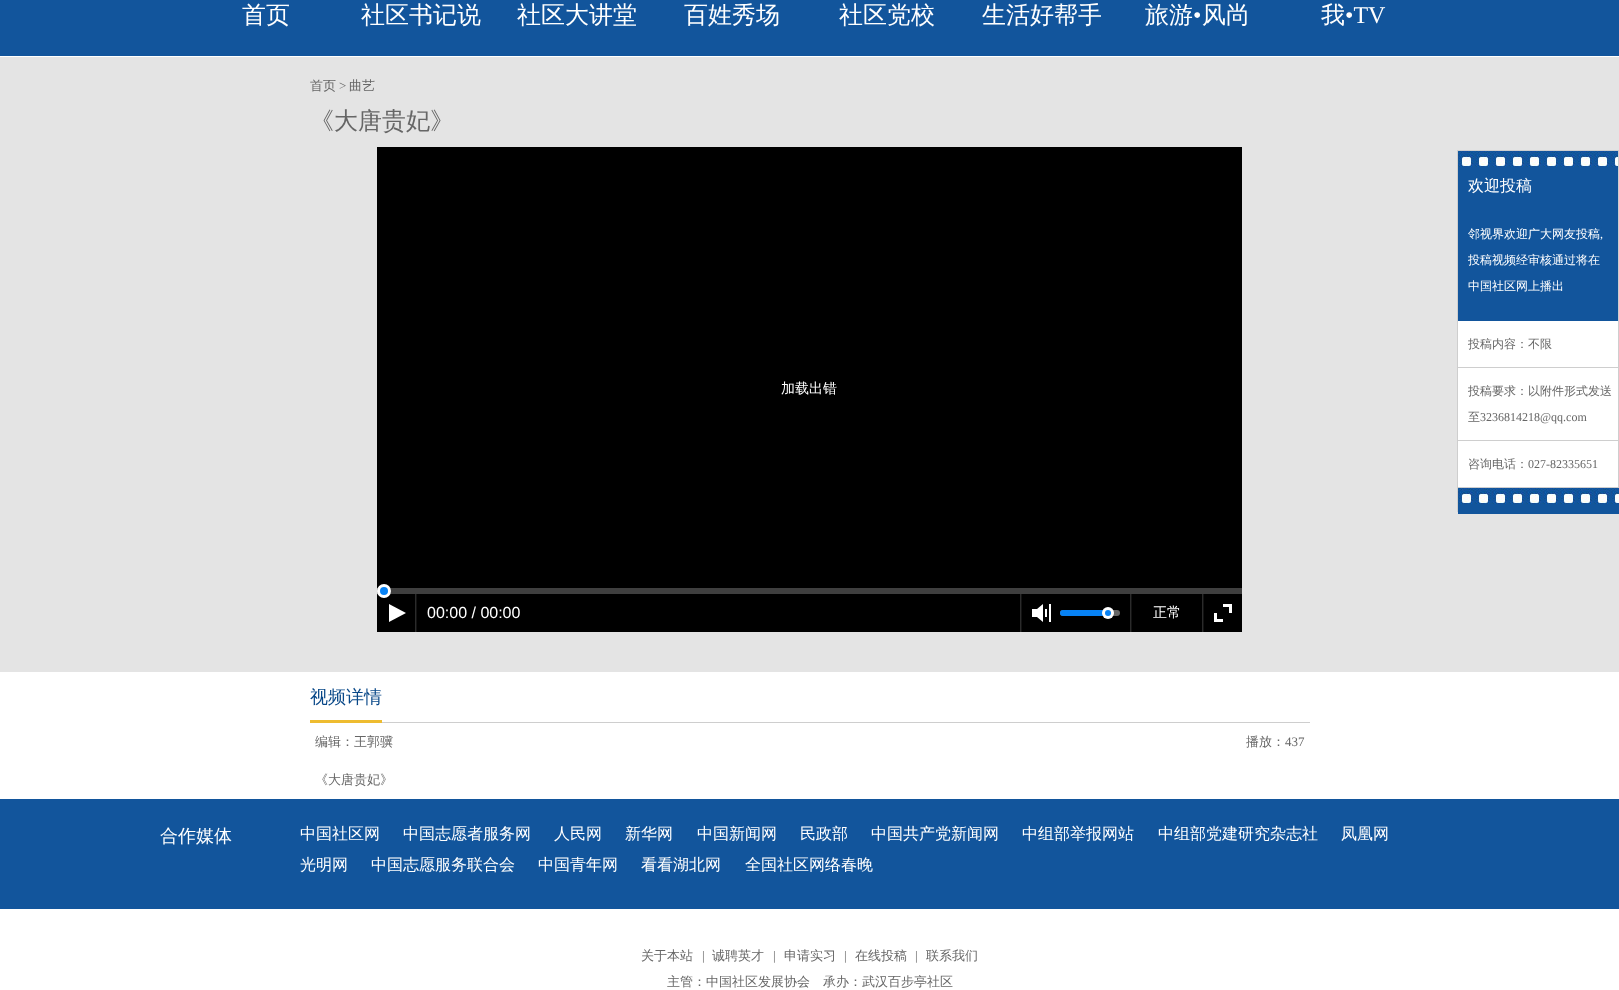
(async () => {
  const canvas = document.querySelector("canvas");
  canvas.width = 1619;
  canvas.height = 990;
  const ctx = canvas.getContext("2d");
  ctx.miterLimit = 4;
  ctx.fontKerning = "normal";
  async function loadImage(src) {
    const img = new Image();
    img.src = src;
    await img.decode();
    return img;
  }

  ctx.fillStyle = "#ffffff";
  ctx.fillRect(0, 0, 1619, 990);
  for (const [x, y, w, h, color] of [
    [0, 0, 1619, 56, "#12559c"],
    [0, 57, 1619, 615, "#e4e4e4"],
    [377, 147, 865, 485, "#000000"],
    [390, 588, 852, 6, "#3f3f3f"],
    [377, 588, 1, 6, "#6f6f6f"],
  ]) {
    ctx.fillStyle = color;
    ctx.fillRect(x, y, w, h);
  }
  ctx.fillStyle = "#ffffff";
  ctx.beginPath();
  ctx.arc(384, 591, 7, 0, Math.PI * 2);
  ctx.fill();
  ctx.fillStyle = "#0782f5";
  ctx.beginPath();
  ctx.arc(384, 591, 4, 0, Math.PI * 2);
  ctx.fill();
  ctx.drawImage(await loadImage("img/1.png"), 389, 604, 17, 18);
  for (const [x, y, w, h, color] of [
    [416, 594, 1, 38, "#131313"],
    [415, 594, 1, 38, "#2b2b2b"],
    [1021, 594, 1, 38, "#131313"],
    [1020, 594, 1, 38, "#2b2b2b"],
  ]) {
    ctx.fillStyle = color;
    ctx.fillRect(x, y, w, h);
  }
  ctx.drawImage(await loadImage("img/2.png"), 1032, 604, 19, 18);
  ctx.fillStyle = "#666666";
  ctx.beginPath();
  ctx.roundRect(1060, 610, 60, 6, 3);
  ctx.fill();
  ctx.fillStyle = "#0782f5";
  ctx.beginPath();
  ctx.roundRect(1060, 610, 48, 6, 3);
  ctx.fill();
  ctx.fillStyle = "#ffffff";
  ctx.beginPath();
  ctx.arc(1108, 613, 6, 0, Math.PI * 2);
  ctx.fill();
  ctx.fillStyle = "#0782f5";
  ctx.beginPath();
  ctx.arc(1108, 613, 3, 0, Math.PI * 2);
  ctx.fill();
  for (const [x, y, w, h, color] of [
    [1131, 594, 1, 38, "#131313"],
    [1130, 594, 1, 38, "#2b2b2b"],
    [1203, 594, 1, 38, "#131313"],
    [1202, 594, 1, 38, "#2b2b2b"],
  ]) {
    ctx.fillStyle = color;
    ctx.fillRect(x, y, w, h);
  }
  ctx.drawImage(await loadImage("img/3.png"), 1214, 604, 18, 18);
  for (const [x, y, w, h, color] of [
    [382, 722, 928, 1, "#cecece"],
    [310, 720, 72, 3, "#eebc30"],
    [1458, 321, 160, 166, "#ffffff"],
  ]) {
    ctx.fillStyle = color;
    ctx.fillRect(x, y, w, h);
  }
  ctx.strokeStyle = "#cecece";
  ctx.strokeRect(1457.5, 150.5, 161, 361);
  ctx.drawImage(await loadImage("img/4.png"), 1458, 151, 160, 70);
  for (const [x, y, w, h, color] of [
    [1458, 221, 160, 100, "#12559c"],
    [1458, 367, 160, 1, "#cecece"],
    [1458, 440, 160, 1, "#cecece"],
    [1458, 487, 160, 1, "#cecece"],
  ]) {
    ctx.fillStyle = color;
    ctx.fillRect(x, y, w, h);
  }
  ctx.drawImage(await loadImage("img/5.png"), 1458, 488, 161, 26);
  ctx.fillStyle = "#12559c";
  ctx.fillRect(0, 799, 1619, 110);
  ctx.font = "500 24px WenQuanYi Zen Hei";
  ctx.fillStyle = "#ffffff";
  for (const [text, x, y] of [
    ["首页", 242, 23],
    ["社区书记说", 361, 23],
    ["社区大讲堂", 517, 23],
    ["百姓秀场", 684, 23],
    ["社区党校", 839, 23],
    ["生活好帮手", 982, 23],
    ["旅游", 1145, 23],
  ]) {
    ctx.fillText(text, x, y);
  }
  ctx.font = "24px Liberation Serif";
  ctx.fillText("•", 1193, 23);
  ctx.font = "500 24px WenQuanYi Zen Hei";
  ctx.fillText("风尚", 1202, 23);
  ctx.fillText("我", 1321, 23);
  ctx.font = "24px Liberation Serif";
  ctx.fillText("•TV", 1345, 23);
  ctx.font = "500 13px WenQuanYi Zen Hei";
  ctx.fillStyle = "#666666";
  ctx.fillText("首页", 310, 90);
  ctx.font = "13px Liberation Serif";
  ctx.fillText(">", 339, 90);
  ctx.font = "500 13px WenQuanYi Zen Hei";
  ctx.fillText("曲艺", 349, 90);
  ctx.font = "500 24px WenQuanYi Zen Hei";
  ctx.fillText("《大唐贵妃》", 310, 129);
  ctx.font = "500 14px WenQuanYi Zen Hei";
  ctx.fillStyle = "#ffffff";
  ctx.fillText("加载出错", 781, 393);
  ctx.font = "16px Liberation Sans";
  ctx.fillText("00:00 / 00:00", 427, 618);
  ctx.font = "500 14px WenQuanYi Zen Hei";
  ctx.fillText("正常", 1153, 617);
  ctx.font = "500 18px WenQuanYi Zen Hei";
  ctx.fillStyle = "#094888";
  ctx.fillText("视频详情", 310, 703);
  ctx.font = "500 13px WenQuanYi Zen Hei";
  ctx.fillStyle = "#666666";
  ctx.fillText("编辑：王郭骥", 315, 746);
  ctx.fillText("播放：", 1246, 746);
  ctx.font = "13px Liberation Serif";
  ctx.fillText("437", 1285, 746);
  ctx.font = "500 13px WenQuanYi Zen Hei";
  ctx.fillText("《大唐贵妃》", 315, 784);
  ctx.font = "500 16px WenQuanYi Zen Hei";
  ctx.fillStyle = "#ffffff";
  ctx.fillText("欢迎投稿", 1468, 191);
  ctx.font = "500 12px WenQuanYi Zen Hei";
  ctx.fillText("邻视界欢迎广大网友投稿", 1468, 238);
  ctx.font = "12px Liberation Serif";
  ctx.fillText(",", 1600, 238);
  ctx.font = "500 12px WenQuanYi Zen Hei";
  ctx.fillText("投稿视频经审核通过将在", 1468, 264);
  ctx.fillText("中国社区网上播出", 1468, 290);
  ctx.fillStyle = "#666666";
  for (const [text, x, y] of [
    ["投稿内容：不限", 1468, 348],
    ["投稿要求：以附件形式发送", 1468, 395],
    ["至", 1468, 421],
  ]) {
    ctx.fillText(text, x, y);
  }
  ctx.font = "12px Liberation Serif";
  ctx.fillText("3236814218@qq.com", 1480, 421);
  ctx.font = "500 12px WenQuanYi Zen Hei";
  ctx.fillText("咨询电话：", 1468, 468);
  ctx.font = "12px Liberation Serif";
  ctx.fillText("027-82335651", 1528, 468);
  ctx.font = "500 18px WenQuanYi Zen Hei";
  ctx.fillStyle = "#ffffff";
  ctx.fillText("合作媒体", 160, 842);
  ctx.font = "500 16px WenQuanYi Zen Hei";
  for (const [text, x, y] of [
    ["中国社区网", 300, 839],
    ["中国志愿者服务网", 403, 839],
    ["人民网", 554, 839],
    ["新华网", 625, 839],
    ["中国新闻网", 697, 839],
    ["民政部", 800, 839],
    ["中国共产党新闻网", 871, 839],
    ["中组部举报网站", 1022, 839],
    ["中组部党建研究杂志社", 1158, 839],
    ["凤凰网", 1341, 839],
    ["光明网", 300, 870],
    ["中国志愿服务联合会", 371, 870],
    ["中国青年网", 538, 870],
    ["看看湖北网", 641, 870],
    ["全国社区网络春晚", 745, 870],
  ]) {
    ctx.fillText(text, x, y);
  }
  ctx.font = "500 13px WenQuanYi Zen Hei";
  ctx.fillStyle = "#666666";
  ctx.fillText("关于本站", 641, 960);
  ctx.font = "13px Liberation Serif";
  ctx.fillText("|", 702, 960);
  ctx.font = "500 13px WenQuanYi Zen Hei";
  ctx.fillText("诚聘英才", 712, 960);
  ctx.font = "13px Liberation Serif";
  ctx.fillText("|", 773, 960);
  ctx.font = "500 13px WenQuanYi Zen Hei";
  ctx.fillText("申请实习", 784, 960);
  ctx.font = "13px Liberation Serif";
  ctx.fillText("|", 844, 960);
  ctx.font = "500 13px WenQuanYi Zen Hei";
  ctx.fillText("在线投稿", 855, 960);
  ctx.font = "13px Liberation Serif";
  ctx.fillText("|", 915, 960);
  ctx.font = "500 13px WenQuanYi Zen Hei";
  for (const [text, x, y] of [
    ["联系我们", 926, 960],
    ["主管：中国社区发展协会", 667, 986],
    ["承办：武汉百步亭社区", 823, 986],
  ]) {
    ctx.fillText(text, x, y);
  }
})();
